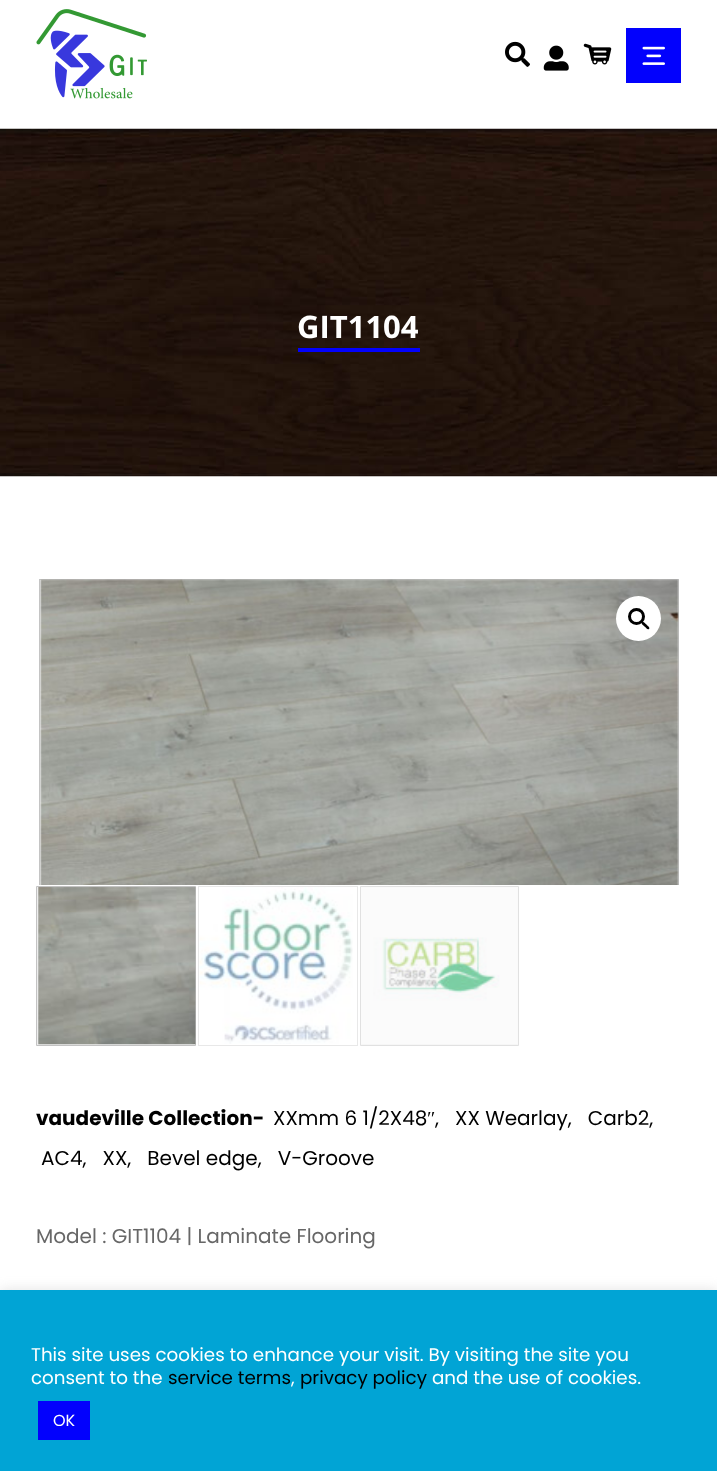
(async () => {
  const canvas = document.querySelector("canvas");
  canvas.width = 717;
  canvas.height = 1471;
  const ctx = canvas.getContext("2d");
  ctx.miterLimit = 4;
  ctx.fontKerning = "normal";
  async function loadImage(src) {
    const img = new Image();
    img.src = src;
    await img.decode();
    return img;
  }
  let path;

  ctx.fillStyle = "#ffffff";
  ctx.fillRect(0, 0, 717, 1471);
  ctx.drawImage(await loadImage("img/1.png"), 36, 9, 111, 90);
  ctx.drawImage(await loadImage("img/2.png"), 505, 41, 25, 26);
  ctx.drawImage(await loadImage("img/3.png"), 543, 45, 26, 26);
  ctx.drawImage(await loadImage("img/4.png"), 583, 43, 29, 22);
  ctx.fillStyle = "#0201fd";
  ctx.fillRect(626, 28, 55, 55);
  ctx.drawImage(await loadImage("img/5.png"), 642, 46, 23, 19);
  ctx.drawImage(await loadImage("img/6.png"), 0, 128, 717, 349);
  ctx.fillRect(298, 348, 122, 4);
  ctx.fillStyle = "#eeeeee";
  ctx.fillRect(40, 580, 638, 305);
  ctx.save();
  ctx.beginPath();
  ctx.rect(36, 576, 645, 309);
  ctx.clip();
  ctx.strokeStyle = "#c4c4c4";
  ctx.strokeRect(39.5, 579.5, 639, 426);
  ctx.restore();
  ctx.drawImage(await loadImage("img/7.png"), 40, 579, 639, 306);
  ctx.fillStyle = "#ffffff";
  ctx.beginPath();
  ctx.arc(638.5, 618.5, 22.5, 0, Math.PI * 2);
  ctx.fill();
  ctx.beginPath();
  ctx.arc(636.5, 616.5, 7, 0, Math.PI * 2);
  ctx.strokeStyle = "#000000";
  ctx.lineWidth = 3;
  ctx.stroke();
  ctx.fillStyle = "#000000";
  path = new Path2D("M642 622C643.5 620.5 645.5 624 646.5 624.5C647 625.5 650.5 627.5 649 629C647.5 630.5 645.5 627 644.5 626.5C643.5 625.5 640.5 623.5 642 622Z");
  ctx.fill(path);
  ctx.fillStyle = "#ededed";
  ctx.beginPath();
  ctx.rect(36.5, 886.5, 159, 159);
  ctx.fill();
  ctx.strokeStyle = "#c3c3c3";
  ctx.lineWidth = 1;
  ctx.stroke();
  ctx.drawImage(await loadImage("img/8.png"), 38, 887, 158, 158);
  ctx.strokeStyle = "#e8e8e8";
  ctx.strokeRect(198.5, 886.5, 159, 159);
  ctx.drawImage(await loadImage("img/9.png"), 199, 887, 154, 157);
  ctx.fillStyle = "#f6f6f6";
  ctx.beginPath();
  ctx.rect(360.5, 886.5, 158, 159);
  ctx.fill();
  ctx.strokeStyle = "#e1e1e1";
  ctx.stroke();
  ctx.drawImage(await loadImage("img/10.png"), 361, 887, 157, 157);
  ctx.fillStyle = "rgba(172, 171, 171, 0.3)";
  ctx.filter = "blur(6px)";
  ctx.beginPath();
  ctx.rect(0, 1289, 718, 181);
  ctx.fill();
  ctx.filter = "none";
  ctx.fillStyle = "#01a4d5";
  ctx.fillRect(0, 1290, 717, 181);
  ctx.fillStyle = "#0201fd";
  ctx.fillRect(38, 1401, 52, 39);
  ctx.font = "bold 31px Open Sans";
  ctx.fillStyle = "#ffffff";
  ctx.fillText("GIT1104", 297, 338);
  ctx.font = "bold 20px Poppins";
  ctx.fillStyle = "#000000";
  ctx.fillText("vaudeville Collection-", 36, 1125);
  ctx.font = "20px Poppins";
  ctx.fillText("XXmm 6 1/2X48", 273, 1125);
  ctx.font = "20px Liberation Serif";
  ctx.fillText("″", 427, 1125);
  ctx.font = "20px Poppins";
  ctx.fillText(",   XX Wearlay,   Carb2,", 435, 1125);
  ctx.fillText("AC4,   XX,   Bevel edge,   V-Groove", 41, 1165);
  ctx.fillStyle = "#676767";
  ctx.fillText("Model : GIT1104 | Laminate Flooring", 36, 1243);
  ctx.font = "18.3px Poppins";
  ctx.fillStyle = "#ffffff";
  ctx.fillText("This site uses cookies to enhance your visit. By visiting the site you", 31, 1361);
  ctx.fillText("consent to the", 31, 1384);
  ctx.fillStyle = "#000000";
  ctx.fillText("service terms", 168, 1384);
  ctx.fillStyle = "#ffffff";
  ctx.fillText(",", 291, 1384);
  ctx.fillStyle = "#000000";
  ctx.fillText("privacy policy", 300, 1384);
  ctx.fillStyle = "#ffffff";
  ctx.fillText("and the use of cookies.", 432, 1384);
  ctx.font = "16px Poppins";
  ctx.fillText("OK", 53, 1426);
})();
